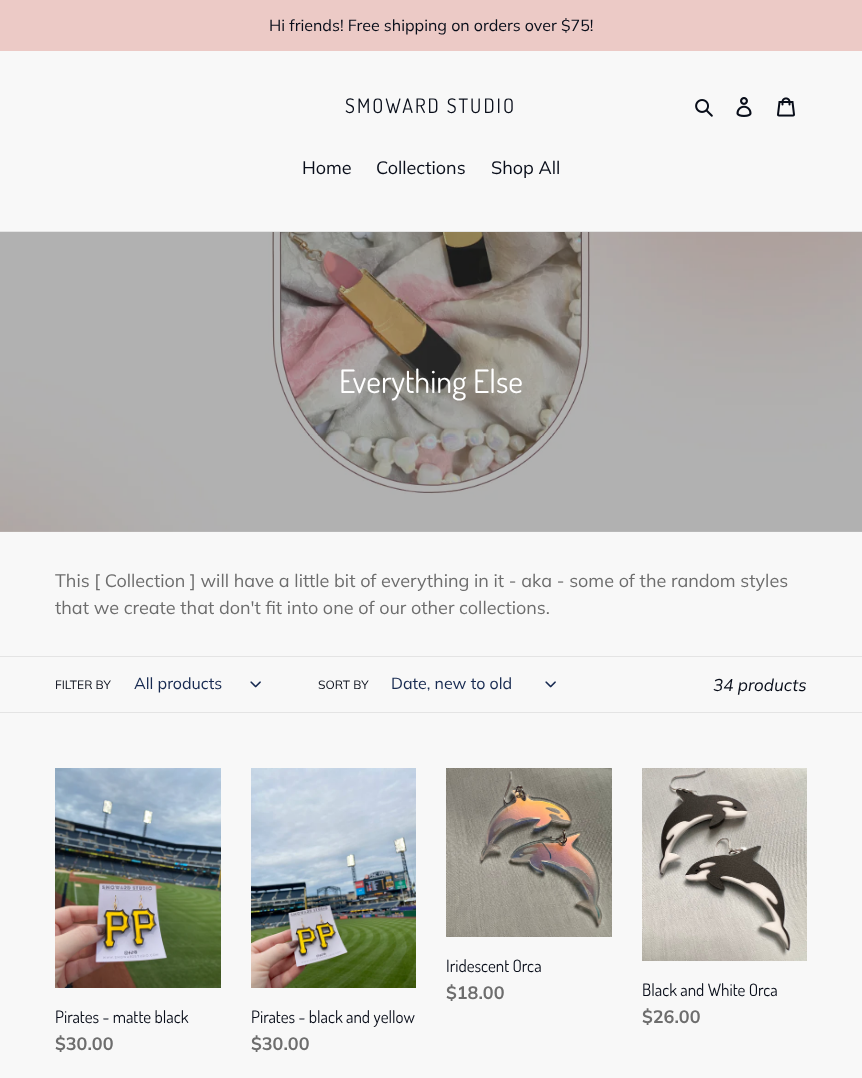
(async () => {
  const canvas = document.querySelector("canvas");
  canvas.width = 862;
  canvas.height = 1078;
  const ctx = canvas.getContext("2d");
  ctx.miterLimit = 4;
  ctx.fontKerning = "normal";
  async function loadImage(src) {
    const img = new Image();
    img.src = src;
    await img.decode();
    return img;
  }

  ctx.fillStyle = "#f8f8f8";
  ctx.fillRect(0, 0, 862, 1078);
  ctx.fillStyle = "#eccac6";
  ctx.fillRect(0, 0, 862, 51);
  ctx.drawImage(await loadImage("img/1.png"), 695, 99, 18, 18);
  ctx.drawImage(await loadImage("img/2.png"), 736, 97, 16, 20);
  ctx.drawImage(await loadImage("img/3.png"), 777, 97, 18, 20);
  ctx.fillStyle = "#e4e4e4";
  ctx.fillRect(0, 231, 862, 1);
  ctx.drawImage(await loadImage("img/4.png"), 0, 232, 862, 300);
  ctx.fillRect(0, 656, 862, 1);
  ctx.fillRect(0, 712, 862, 1);
  ctx.drawImage(await loadImage("img/5.png"), 250, 681, 11, 7);
  ctx.drawImage(await loadImage("img/5.png"), 545, 681, 11, 7);
  ctx.drawImage(await loadImage("img/6.png"), 446, 768, 166, 169);
  ctx.drawImage(await loadImage("img/7.png"), 642, 768, 165, 193);
  ctx.drawImage(await loadImage("img/8.png"), 55, 768, 166, 220);
  ctx.drawImage(await loadImage("img/9.png"), 251, 768, 165, 220);
  ctx.font = "16px Muli";
  ctx.fillStyle = "#080d19";
  ctx.fillText("Hi friends! Free shipping on orders over $75!", 269, 31);
  ctx.letterSpacing = "2px";
  ctx.font = "20px Dosis";
  ctx.fillText("SMOWARD STUDIO", 345, 113);
  ctx.letterSpacing = "0px";
  ctx.font = "18px Muli";
  for (const [text, x, y] of [
    ["Home", 302, 174],
    ["Collections", 376, 174],
    ["Shop All", 491, 174],
  ]) {
    ctx.fillText(text, x, y);
  }
  ctx.font = "32px Dosis";
  ctx.fillStyle = "#ffffff";
  ctx.fillText("Everything Else", 339, 393);
  ctx.font = "18px Muli";
  ctx.fillStyle = "#6d6d6d";
  ctx.fillText("This [ Collection ] will have a little bit of everything in it - aka - some of the random styles", 55, 587);
  ctx.fillText("that we create that don't fit into one of our other collections.", 55, 614);
  ctx.font = "12px Muli";
  ctx.fillStyle = "#080d19";
  ctx.fillText("FILTER BY", 55, 689);
  ctx.font = "16px Muli";
  ctx.fillStyle = "#162950";
  ctx.fillText("All products", 134, 689);
  ctx.font = "12px Muli";
  ctx.fillStyle = "#080d19";
  ctx.fillText("SORT BY", 318, 689);
  ctx.font = "16px Muli";
  ctx.fillStyle = "#162950";
  ctx.fillText("Date, new to old", 391, 689);
  ctx.font = "italic 17px Muli";
  ctx.fillStyle = "#080d19";
  ctx.fillText("34 products", 713, 691);
  ctx.font = "17px Dosis";
  ctx.fillText("Iridescent Orca", 446, 972);
  ctx.font = "bold 18px Muli";
  ctx.fillStyle = "#6d6d6d";
  ctx.fillText("$18.00", 446, 999);
  ctx.font = "17px Dosis";
  ctx.fillStyle = "#080d19";
  ctx.fillText("Black and White Orca", 642, 996);
  ctx.font = "bold 18px Muli";
  ctx.fillStyle = "#6d6d6d";
  ctx.fillText("$26.00", 642, 1023);
  ctx.font = "17px Dosis";
  ctx.fillStyle = "#080d19";
  ctx.fillText("Pirates - matte black", 55, 1023);
  ctx.font = "bold 18px Muli";
  ctx.fillStyle = "#6d6d6d";
  ctx.fillText("$30.00", 55, 1050);
  ctx.font = "17px Dosis";
  ctx.fillStyle = "#080d19";
  ctx.fillText("Pirates - black and yellow", 251, 1023);
  ctx.font = "bold 18px Muli";
  ctx.fillStyle = "#6d6d6d";
  ctx.fillText("$30.00", 251, 1050);
})();
